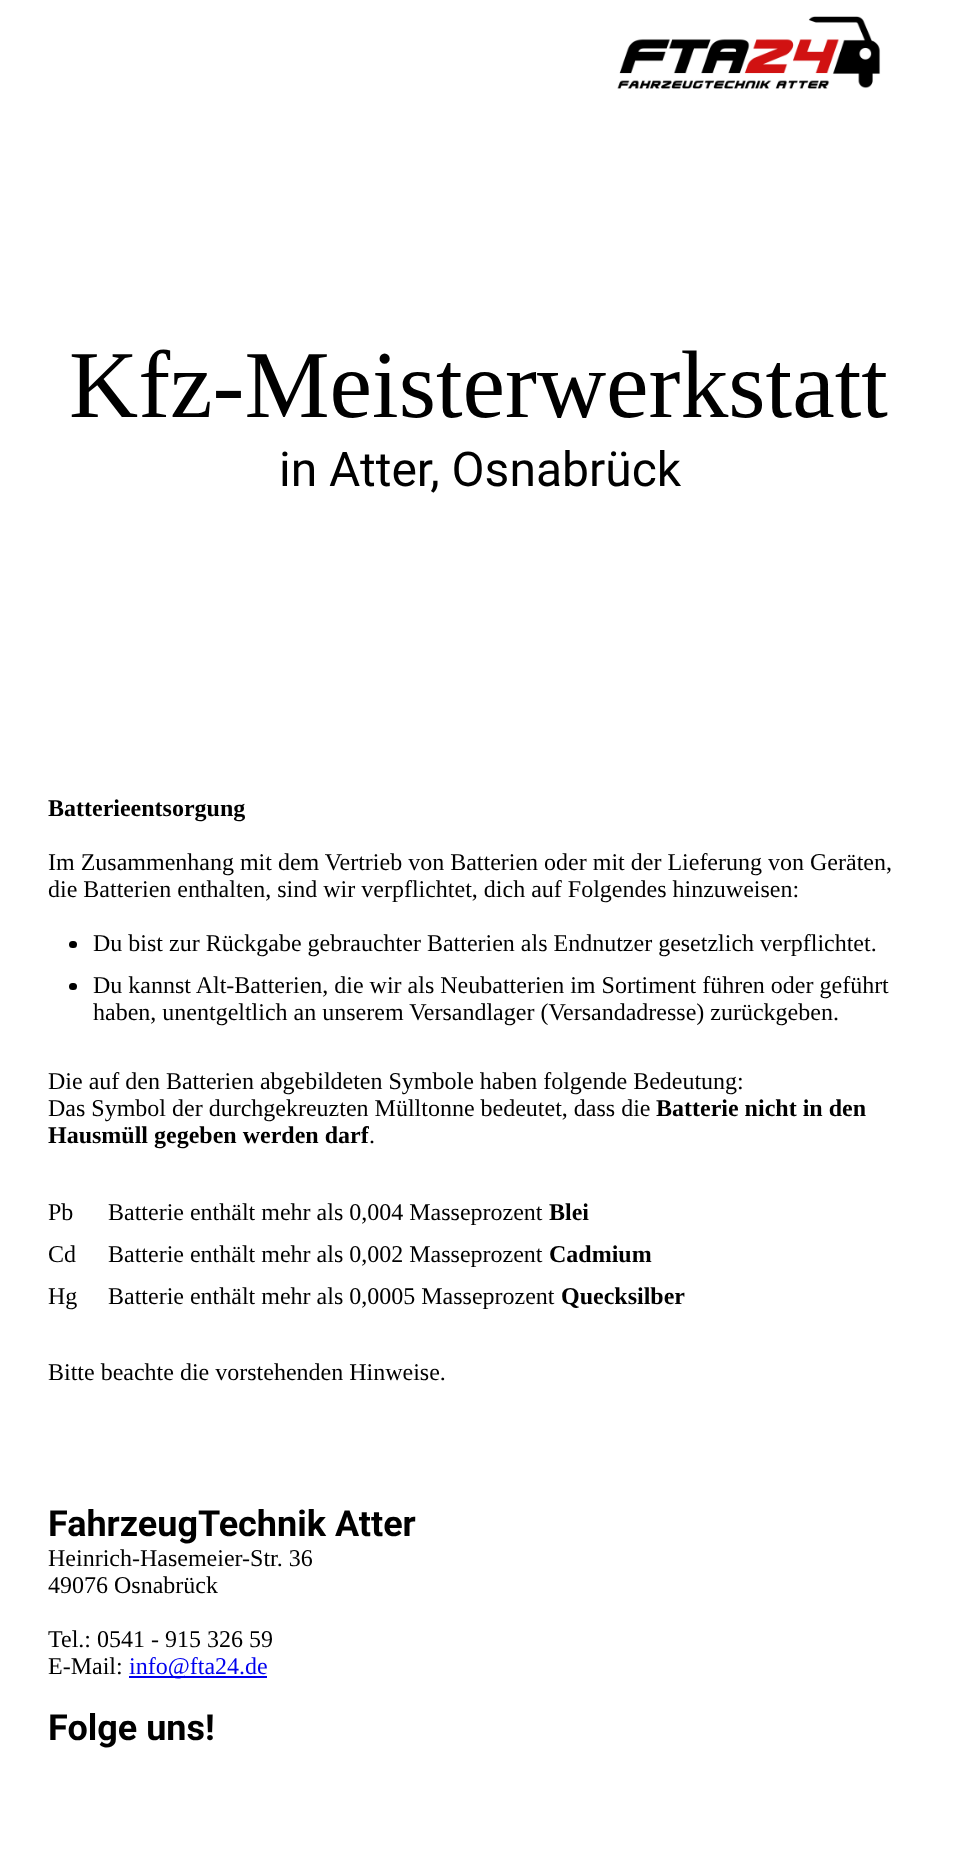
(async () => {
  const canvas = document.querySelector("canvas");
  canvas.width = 958;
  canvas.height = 1858;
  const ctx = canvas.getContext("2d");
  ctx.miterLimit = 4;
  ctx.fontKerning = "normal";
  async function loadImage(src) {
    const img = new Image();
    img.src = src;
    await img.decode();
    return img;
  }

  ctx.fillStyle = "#ffffff";
  ctx.fillRect(0, 0, 958, 1858);
  ctx.drawImage(await loadImage("img/1.png"), 617, 16, 264, 73);
  ctx.fillStyle = "#000000";
  ctx.beginPath();
  ctx.roundRect(69, 941, 8, 7, 3.5);
  ctx.fill();
  ctx.beginPath();
  ctx.roundRect(69, 983, 8, 7, 3.5);
  ctx.fill();
  ctx.fillStyle = "#0000ee";
  ctx.fillRect(129, 1676, 138, 2);
  ctx.font = "95.75px Liberation Serif";
  ctx.fillStyle = "#000000";
  ctx.fillText("Kfz-Meisterwerkstatt", 69, 417);
  ctx.font = "48px Roboto";
  ctx.fillText("in Atter, Osnabrück", 279, 486);
  ctx.font = "bold 24px Liberation Serif";
  ctx.fillText("Batterieentsorgung", 48, 816);
  ctx.font = "24px Liberation Serif";
  for (const [text, x, y] of [
    ["Im Zusammenhang mit dem Vertrieb von Batterien oder mit der Lieferung von Geräten,", 48, 870],
    ["die Batterien enthalten, sind wir verpflichtet, dich auf Folgendes hinzuweisen:", 48, 897],
    ["Du bist zur Rückgabe gebrauchter Batterien als Endnutzer gesetzlich verpflichtet.", 93, 951],
    ["Du kannst Alt-Batterien, die wir als Neubatterien im Sortiment führen oder geführt", 93, 993],
    ["haben, unentgeltlich an unserem Versandlager (Versandadresse) zurückgeben.", 93, 1020],
    ["Die auf den Batterien abgebildeten Symbole haben folgende Bedeutung:", 48, 1089],
    ["Das Symbol der durchgekreuzten Mülltonne bedeutet, dass die", 48, 1116],
  ]) {
    ctx.fillText(text, x, y);
  }
  ctx.font = "bold 24px Liberation Serif";
  ctx.fillText("Batterie nicht in den", 656, 1116);
  ctx.fillText("Hausmüll gegeben werden darf", 48, 1143);
  ctx.font = "24px Liberation Serif";
  for (const [text, x, y] of [
    [".", 369, 1143],
    ["Pb", 48, 1220],
    ["Batterie enthält mehr als 0,004 Masseprozent", 108, 1220],
  ]) {
    ctx.fillText(text, x, y);
  }
  ctx.font = "bold 24px Liberation Serif";
  ctx.fillText("Blei", 549, 1220);
  ctx.font = "24px Liberation Serif";
  ctx.fillText("Cd", 48, 1262);
  ctx.fillText("Batterie enthält mehr als 0,002 Masseprozent", 108, 1262);
  ctx.font = "bold 24px Liberation Serif";
  ctx.fillText("Cadmium", 549, 1262);
  ctx.font = "24px Liberation Serif";
  ctx.fillText("Hg", 48, 1304);
  ctx.fillText("Batterie enthält mehr als 0,0005 Masseprozent", 108, 1304);
  ctx.font = "bold 24px Liberation Serif";
  ctx.fillText("Quecksilber", 561, 1304);
  ctx.font = "24px Liberation Serif";
  ctx.fillText("Bitte beachte die vorstehenden Hinweise.", 48, 1380);
  ctx.font = "bold 36px Roboto";
  ctx.fillText("FahrzeugTechnik Atter", 48, 1536);
  ctx.font = "24px Liberation Serif";
  for (const [text, x, y] of [
    ["Heinrich-Hasemeier-Str. 36", 48, 1566],
    ["49076 Osnabrück", 48, 1593],
    ["Tel.: 0541 - 915 326 59", 48, 1647],
    ["E-Mail:", 48, 1674],
  ]) {
    ctx.fillText(text, x, y);
  }
  ctx.fillStyle = "#0000ee";
  ctx.fillText("info@fta24.de", 129, 1674);
  ctx.font = "bold 36px Roboto";
  ctx.fillStyle = "#000000";
  ctx.fillText("Folge uns!", 48, 1740);
})();
